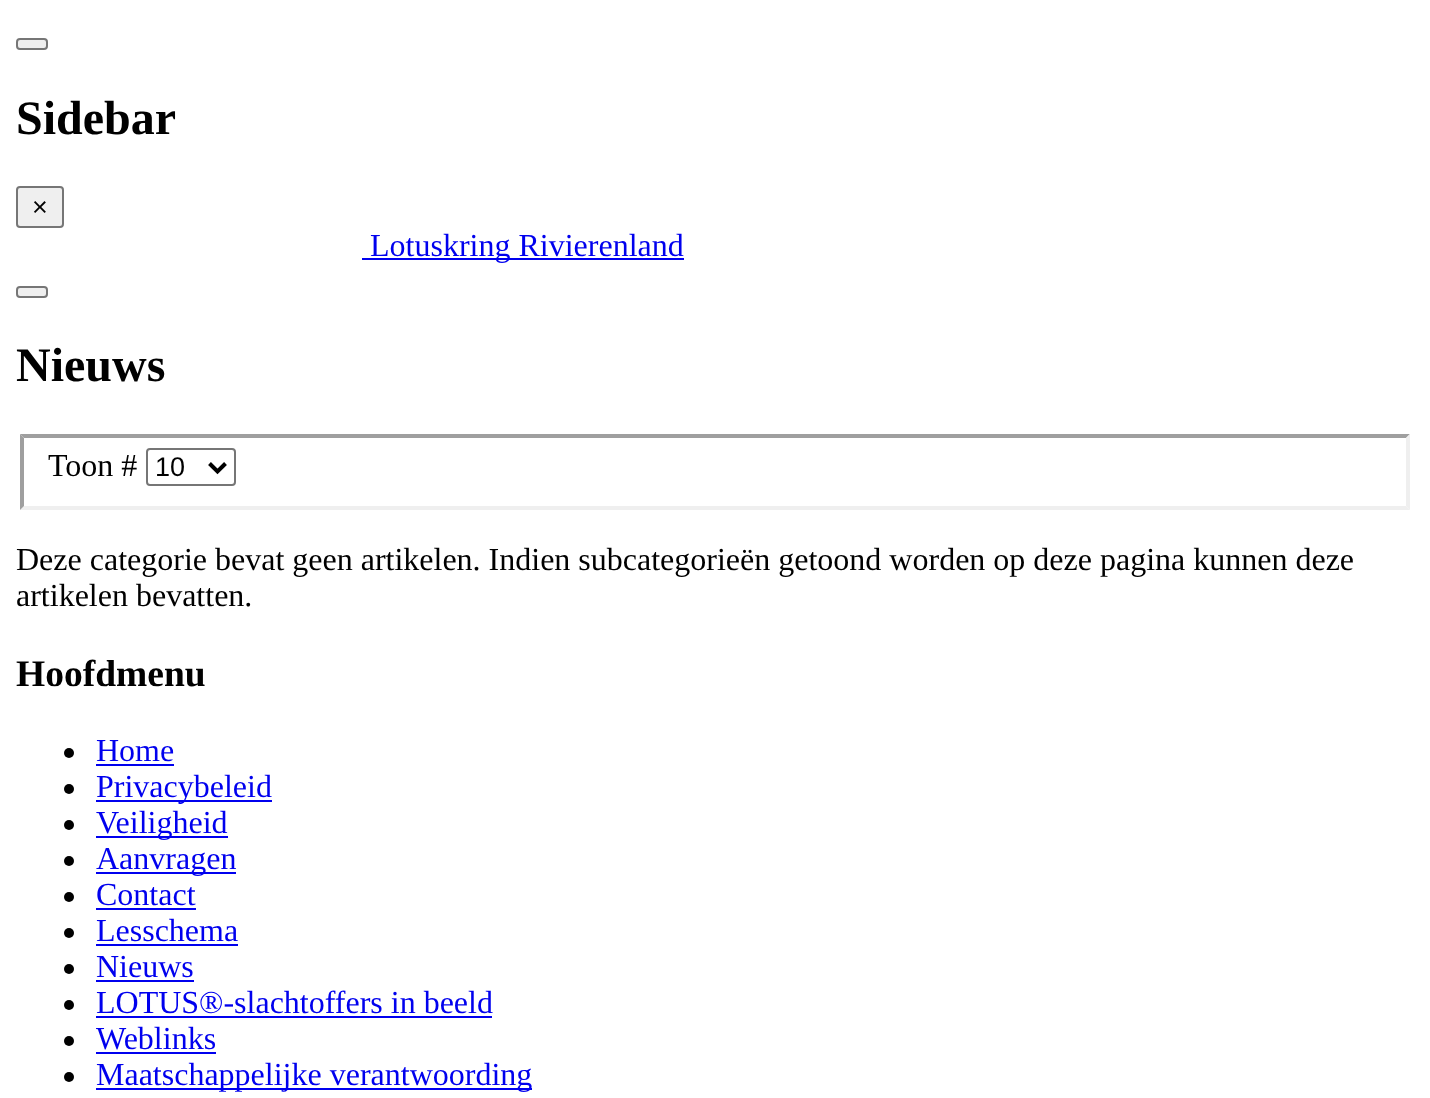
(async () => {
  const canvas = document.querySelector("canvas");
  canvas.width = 1430;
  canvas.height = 1098;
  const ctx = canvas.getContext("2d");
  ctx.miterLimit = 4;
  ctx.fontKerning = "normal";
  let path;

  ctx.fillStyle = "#ffffff";
  ctx.fillRect(0, 0, 1430, 1098);
  ctx.fillStyle = "#efefef";
  ctx.beginPath();
  ctx.roundRect(17, 39, 30, 10, 3);
  ctx.fill();
  ctx.strokeStyle = "#767676";
  ctx.lineWidth = 2;
  ctx.stroke();
  ctx.beginPath();
  ctx.roundRect(17, 187, 46, 40, 3);
  ctx.fill();
  ctx.stroke();
  ctx.fillStyle = "#0000ee";
  ctx.fillRect(362, 258, 322, 2);
  ctx.fillStyle = "#efefef";
  ctx.beginPath();
  ctx.roundRect(17, 287, 30, 10, 3);
  ctx.fill();
  ctx.stroke();
  ctx.fillStyle = "#9f9f9f";
  path = new Path2D("M20 434H1410L1406 438H24Z");
  ctx.fill(path);
  ctx.fillStyle = "#efefef";
  path = new Path2D("M1410 434V510L1406 506V438Z");
  ctx.fill(path);
  path = new Path2D("M1410 510H20L24 506H1406Z");
  ctx.fill(path);
  ctx.fillStyle = "#9f9f9f";
  path = new Path2D("M20 510V434L24 438V506Z");
  ctx.fill(path);
  ctx.beginPath();
  ctx.roundRect(147, 449, 88, 36, 3);
  ctx.stroke();
  path = new Path2D("M209.5 463.5L217.5 471.5L225.5 463.5");
  ctx.strokeStyle = "#000000";
  ctx.lineWidth = 4;
  ctx.stroke(path);
  ctx.fillStyle = "#000000";
  ctx.beginPath();
  ctx.arc(69, 753, 5, 0, Math.PI * 2);
  ctx.fill();
  ctx.fillStyle = "#0000ee";
  ctx.fillRect(96, 764, 78, 2);
  ctx.fillStyle = "#000000";
  ctx.beginPath();
  ctx.arc(69, 789, 5, 0, Math.PI * 2);
  ctx.fill();
  ctx.fillStyle = "#0000ee";
  ctx.fillRect(96, 800, 176, 2);
  ctx.fillStyle = "#000000";
  ctx.beginPath();
  ctx.arc(69, 825, 5, 0, Math.PI * 2);
  ctx.fill();
  ctx.fillStyle = "#0000ee";
  ctx.fillRect(96, 836, 132, 2);
  ctx.fillStyle = "#000000";
  ctx.beginPath();
  ctx.arc(69, 861, 5, 0, Math.PI * 2);
  ctx.fill();
  ctx.fillStyle = "#0000ee";
  ctx.fillRect(96, 872, 140, 2);
  ctx.fillStyle = "#000000";
  ctx.beginPath();
  ctx.arc(69, 897, 5, 0, Math.PI * 2);
  ctx.fill();
  ctx.fillStyle = "#0000ee";
  ctx.fillRect(96, 908, 100, 2);
  ctx.fillStyle = "#000000";
  ctx.beginPath();
  ctx.arc(69, 933, 5, 0, Math.PI * 2);
  ctx.fill();
  ctx.fillStyle = "#0000ee";
  ctx.fillRect(96, 944, 142, 2);
  ctx.fillStyle = "#000000";
  ctx.beginPath();
  ctx.arc(69, 969, 5, 0, Math.PI * 2);
  ctx.fill();
  ctx.fillStyle = "#0000ee";
  ctx.fillRect(96, 980, 98, 2);
  ctx.fillStyle = "#000000";
  ctx.beginPath();
  ctx.arc(69, 1005, 5, 0, Math.PI * 2);
  ctx.fill();
  ctx.fillStyle = "#0000ee";
  ctx.fillRect(96, 1016, 396, 2);
  ctx.fillStyle = "#000000";
  ctx.beginPath();
  ctx.arc(69, 1041, 5, 0, Math.PI * 2);
  ctx.fill();
  ctx.fillStyle = "#0000ee";
  ctx.fillRect(96, 1052, 120, 2);
  ctx.fillStyle = "#000000";
  ctx.beginPath();
  ctx.arc(69, 1077, 5, 0, Math.PI * 2);
  ctx.fill();
  ctx.fillStyle = "#0000ee";
  ctx.fillRect(96, 1088, 436, 2);
  ctx.font = "bold 48px Liberation Serif";
  ctx.fillStyle = "#000000";
  ctx.fillText("Sidebar", 16, 134);
  ctx.font = "27px Liberation Sans";
  ctx.fillText("×", 32, 216);
  ctx.font = "32px Liberation Serif";
  ctx.fillStyle = "#0000ee";
  ctx.fillText("Lotuskring Rivierenland", 370, 256);
  ctx.font = "bold 48px Liberation Serif";
  ctx.fillStyle = "#000000";
  ctx.fillText("Nieuws", 16, 381);
  ctx.font = "32px Liberation Serif";
  ctx.fillText("Toon #", 48, 476);
  ctx.font = "27px Liberation Sans";
  ctx.fillText("10", 155, 476);
  ctx.font = "32px Liberation Serif";
  ctx.fillText("Deze categorie bevat geen artikelen. Indien subcategorieën getoond worden op deze pagina kunnen deze", 16, 570);
  ctx.fillText("artikelen bevatten.", 16, 606);
  ctx.font = "bold 37.5px Liberation Serif";
  ctx.fillText("Hoofdmenu", 16, 686);
  ctx.font = "32px Liberation Serif";
  ctx.fillStyle = "#0000ee";
  for (const [text, x, y] of [
    ["Home", 96, 761],
    ["Privacybeleid", 96, 797],
    ["Veiligheid", 96, 833],
    ["Aanvragen", 96, 869],
    ["Contact", 96, 905],
    ["Lesschema", 96, 941],
    ["Nieuws", 96, 977],
    ["LOTUS®-slachtoffers in beeld", 96, 1013],
    ["Weblinks", 96, 1049],
    ["Maatschappelijke verantwoording", 96, 1085],
  ]) {
    ctx.fillText(text, x, y);
  }
})();
